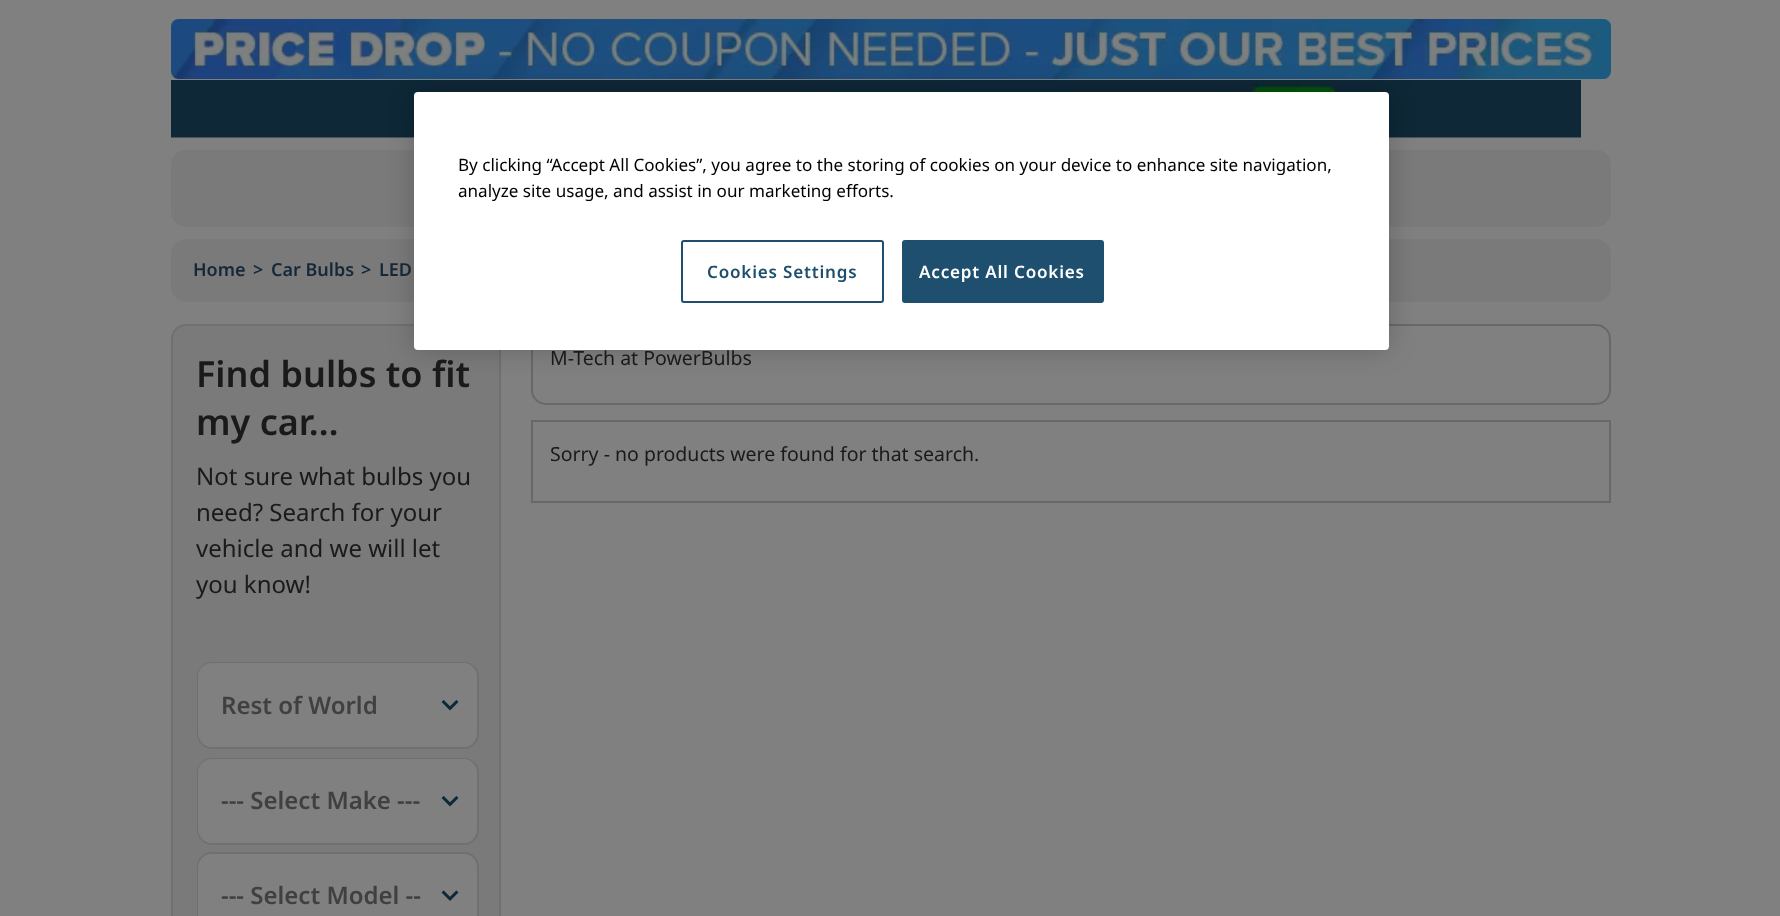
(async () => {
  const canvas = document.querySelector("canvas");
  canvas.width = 1780;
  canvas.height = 916;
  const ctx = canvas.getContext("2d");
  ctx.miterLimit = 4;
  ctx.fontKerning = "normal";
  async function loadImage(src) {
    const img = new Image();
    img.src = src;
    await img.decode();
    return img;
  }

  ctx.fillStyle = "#808080";
  ctx.fillRect(0, 0, 1780, 916);
  ctx.drawImage(await loadImage("img/1.png"), 171, 19, 1440, 60);
  ctx.drawImage(await loadImage("img/2.png"), 171, 80, 1410, 58);
  ctx.fillStyle = "#7a7a7a";
  ctx.beginPath();
  ctx.roundRect(171, 150, 1440, 77, 15);
  ctx.fill();
  ctx.beginPath();
  ctx.roundRect(171, 239, 1440, 63, 15);
  ctx.fill();
  ctx.beginPath();
  ctx.roundRect(172, 325, 328, 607, 14);
  ctx.fill();
  ctx.strokeStyle = "#707070";
  ctx.lineWidth = 2;
  ctx.stroke();
  ctx.beginPath();
  ctx.roundRect(532, 325, 1078, 79, 14);
  ctx.strokeStyle = "#686868";
  ctx.stroke();
  ctx.fillStyle = "rgba(0, 0, 0, 0.2)";
  ctx.filter = "blur(13.5px)";
  ctx.beginPath();
  ctx.roundRect(414, 92, 975, 258, 4);
  ctx.fill();
  ctx.filter = "none";
  ctx.fillStyle = "#ffffff";
  ctx.beginPath();
  ctx.roundRect(414, 92, 975, 258, 4);
  ctx.fill();
  ctx.beginPath();
  ctx.roundRect(682, 241, 201, 61, 2);
  ctx.strokeStyle = "#1e4f6f";
  ctx.stroke();
  ctx.fillStyle = "#1e4f6f";
  ctx.beginPath();
  ctx.roundRect(903, 241, 200, 61, 2);
  ctx.fill();
  ctx.stroke();
  ctx.beginPath();
  ctx.roundRect(198, 663, 280, 85, 14);
  ctx.strokeStyle = "#707070";
  ctx.stroke();
  ctx.fillStyle = "#808080";
  ctx.beginPath();
  ctx.roundRect(198, 663, 279, 84, 14);
  ctx.fill();
  ctx.beginPath();
  ctx.roundRect(423, 663, 54, 84, [12, 14, 14, 12]);
  ctx.fill();
  ctx.drawImage(await loadImage("img/3.png"), 441, 700, 18, 11);
  ctx.beginPath();
  ctx.roundRect(198, 759, 280, 85, 14);
  ctx.stroke();
  ctx.beginPath();
  ctx.roundRect(198, 759, 279, 84, 14);
  ctx.fill();
  ctx.beginPath();
  ctx.roundRect(423, 759, 54, 84, [12, 14, 14, 12]);
  ctx.fill();
  ctx.drawImage(await loadImage("img/3.png"), 441, 796, 18, 11);
  ctx.beginPath();
  ctx.roundRect(198, 853, 280, 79, 14);
  ctx.stroke();
  ctx.beginPath();
  ctx.roundRect(198, 854, 279, 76, 14);
  ctx.fill();
  ctx.drawImage(await loadImage("img/4.png"), 441, 890, 18, 11);
  ctx.strokeStyle = "#686868";
  ctx.strokeRect(532, 421, 1078, 81);
  ctx.font = "17.07px Noto Sans";
  ctx.fillStyle = "#000000";
  ctx.fillText("By clicking “Accept All Cookies”, you agree to the storing of cookies on your device to enhance site navigation,", 458, 171);
  ctx.fillText("analyze site usage, and assist in our marketing efforts.", 458, 197);
  ctx.letterSpacing = "0.8px";
  ctx.font = "600 17.07px Noto Sans";
  ctx.fillStyle = "#1e4f6f";
  ctx.fillText("Cookies Settings", 707, 278);
  ctx.fillStyle = "#ffffff";
  ctx.fillText("Accept All Cookies", 919, 278);
  ctx.letterSpacing = "0px";
  ctx.font = "600 18px Noto Sans";
  ctx.fillStyle = "#162837";
  for (const [text, x, y] of [
    ["Home", 193, 276],
    [">", 253, 276],
    ["Car Bulbs", 271, 276],
    [">", 361, 276],
    ["LED", 379, 276],
  ]) {
    ctx.fillText(text, x, y);
  }
  ctx.font = "600 36px Noto Sans";
  ctx.fillStyle = "#1a1a1a";
  ctx.fillText("Find bulbs to fit", 196, 387);
  ctx.fillText("my car…", 196, 435);
  ctx.font = "24px Noto Sans";
  for (const [text, x, y] of [
    ["Not sure what bulbs you", 196, 485],
    ["need? Search for your", 196, 521],
    ["vehicle and we will let", 196, 557],
    ["you know!", 196, 593],
  ]) {
    ctx.fillText(text, x, y);
  }
  ctx.font = "600 24px Noto Sans";
  ctx.fillStyle = "#404040";
  for (const [text, x, y] of [
    ["Rest of World", 221, 714],
    ["--- Select Make ---", 221, 809],
    ["--- Select Model --", 221, 904],
  ]) {
    ctx.fillText(text, x, y);
  }
  ctx.font = "19.5px Noto Sans";
  ctx.fillStyle = "#1a1a1a";
  ctx.fillText("M-Tech at PowerBulbs", 550, 365);
  ctx.fillText("Sorry - no products were found for that search.", 550, 461);
})();
